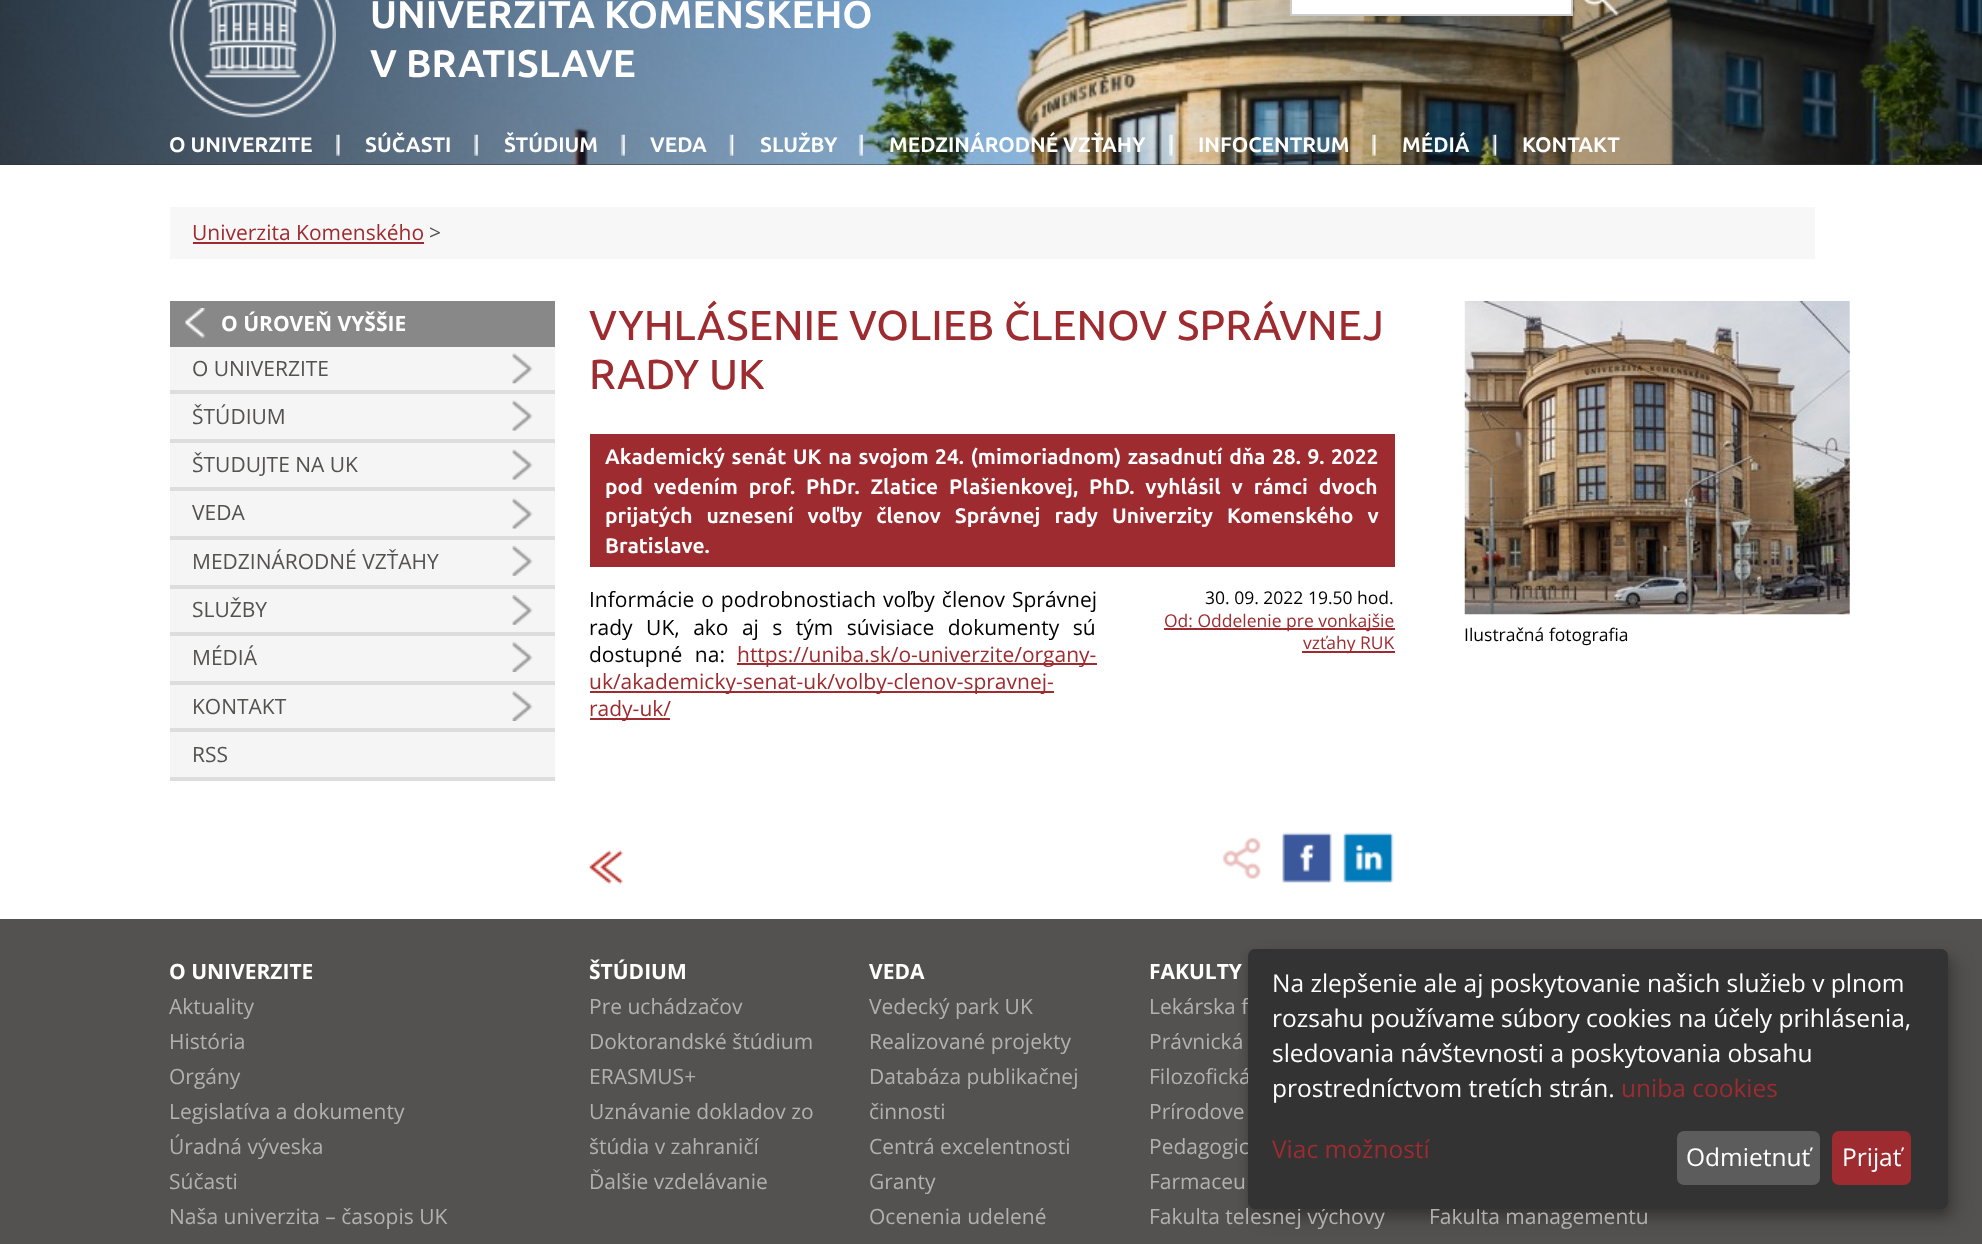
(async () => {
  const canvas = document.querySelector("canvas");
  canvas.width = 1982;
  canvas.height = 1244;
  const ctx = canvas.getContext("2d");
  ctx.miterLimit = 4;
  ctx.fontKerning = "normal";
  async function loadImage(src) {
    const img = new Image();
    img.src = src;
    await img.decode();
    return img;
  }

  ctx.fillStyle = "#ffffff";
  ctx.fillRect(0, 0, 1982, 1244);
  ctx.fillStyle = "#323232";
  ctx.fillRect(0, 164, 1982, 1);
  ctx.drawImage(await loadImage("img/1.png"), 0, 0, 1982, 165);
  ctx.drawImage(await loadImage("img/2.png"), 169, 0, 167, 118);
  ctx.fillStyle = "#ffffff";
  ctx.beginPath();
  ctx.rect(1291, -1, 281, 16);
  ctx.fill();
  ctx.strokeStyle = "#cccccc";
  ctx.lineWidth = 2;
  ctx.stroke();
  ctx.drawImage(await loadImage("img/3.png"), 1583, 0, 36, 16);
  ctx.drawImage(await loadImage("img/4.png"), 336, 134, 4, 22);
  ctx.drawImage(await loadImage("img/5.png"), 474, 134, 4, 22);
  ctx.drawImage(await loadImage("img/6.png"), 621, 134, 4, 22);
  ctx.drawImage(await loadImage("img/7.png"), 729, 134, 5, 22);
  ctx.drawImage(await loadImage("img/8.png"), 859, 134, 4, 22);
  ctx.drawImage(await loadImage("img/9.png"), 1169, 134, 4, 22);
  ctx.drawImage(await loadImage("img/10.png"), 1372, 134, 4, 22);
  ctx.drawImage(await loadImage("img/11.png"), 1492, 134, 5, 22);
  for (const [x, y, w, h, color] of [
    [170, 207, 1645, 52, "#f7f7f7"],
    [193, 242, 231, 2, "#9e2b2f"],
    [170, 347, 385, 430, "#f5f5f5"],
    [170, 301, 385, 46, "#888888"],
  ]) {
    ctx.fillStyle = color;
    ctx.fillRect(x, y, w, h);
  }
  ctx.drawImage(await loadImage("img/12.png"), 185, 308, 20, 30);
  ctx.fillStyle = "#dddddd";
  ctx.fillRect(170, 390, 385, 4);
  ctx.drawImage(await loadImage("img/13.png"), 512, 353, 21, 31);
  ctx.fillRect(170, 439, 385, 4);
  ctx.drawImage(await loadImage("img/14.png"), 512, 400, 21, 31);
  ctx.fillRect(170, 487, 385, 4);
  ctx.drawImage(await loadImage("img/14.png"), 512, 449, 21, 31);
  ctx.fillRect(170, 536, 385, 4);
  ctx.drawImage(await loadImage("img/14.png"), 512, 498, 21, 31);
  ctx.fillRect(170, 585, 385, 4);
  ctx.drawImage(await loadImage("img/15.png"), 512, 546, 21, 30);
  ctx.fillRect(170, 632, 385, 4);
  ctx.drawImage(await loadImage("img/15.png"), 512, 595, 21, 30);
  ctx.fillRect(170, 681, 385, 4);
  ctx.drawImage(await loadImage("img/16.png"), 512, 642, 21, 30);
  ctx.fillRect(170, 728, 385, 4);
  ctx.drawImage(await loadImage("img/16.png"), 512, 691, 21, 30);
  for (const [x, y, w, h, color] of [
    [170, 777, 385, 4, "#dddddd"],
    [590, 434, 805, 133, "#9e2b2f"],
    [737, 663, 360, 2, "#9e2b2f"],
    [590, 691, 464, 2, "#9e2b2f"],
    [590, 718, 80, 2, "#9e2b2f"],
    [1164, 628, 231, 2, "#9e2b2f"],
    [1302, 651, 93, 2, "#9e2b2f"],
  ]) {
    ctx.fillStyle = color;
    ctx.fillRect(x, y, w, h);
  }
  ctx.drawImage(await loadImage("img/17.png"), 589, 850, 34, 34);
  ctx.drawImage(await loadImage("img/18.png"), 1222, 837, 39, 42);
  ctx.drawImage(await loadImage("img/19.png"), 1282, 832, 51, 51);
  ctx.drawImage(await loadImage("img/20.png"), 1343, 832, 51, 51);
  ctx.drawImage(await loadImage("img/21.png"), 1464, 301, 386, 314);
  ctx.fillStyle = "#535250";
  ctx.fillRect(0, 919, 1982, 325);
  ctx.fillStyle = "rgba(0, 0, 0, 0.19)";
  ctx.filter = "blur(9px)";
  ctx.beginPath();
  ctx.roundRect(1257, 957, 700, 261, 7);
  ctx.fill();
  ctx.filter = "none";
  ctx.fillStyle = "rgba(0, 0, 0, 0.2)";
  ctx.filter = "blur(5px)";
  ctx.beginPath();
  ctx.roundRect(1248, 956, 700, 260, 7);
  ctx.fill();
  ctx.filter = "none";
  ctx.font = "bold 38.5px Ubuntu";
  ctx.fillStyle = "#ffffff";
  ctx.fillText("UNIVERZITA KOMENSKÉHO", 370, 28);
  ctx.fillText("V BRATISLAVE", 370, 77);
  ctx.font = "bold 21px Ubuntu";
  for (const [text, x, y] of [
    ["O UNIVERZITE", 169, 152],
    ["SÚČASTI", 365, 152],
    ["ŠTÚDIUM", 504, 152],
    ["VEDA", 650, 152],
    ["SLUŽBY", 760, 152],
    ["MEDZINÁRODNÉ VZŤAHY", 889, 152],
    ["INFOCENTRUM", 1198, 152],
    ["MÉDIÁ", 1402, 152],
    ["KONTAKT", 1522, 152],
  ]) {
    ctx.fillText(text, x, y);
  }
  ctx.font = "21px Open Sans";
  ctx.fillStyle = "#9e2b2f";
  ctx.fillText("Univerzita Komenského", 192, 240);
  ctx.fillStyle = "#535250";
  ctx.fillText(">", 429, 240);
  ctx.font = "bold 21px Open Sans";
  ctx.fillStyle = "#ffffff";
  ctx.fillText("O ÚROVEŇ VYŠŠIE", 221, 331);
  ctx.font = "21px Open Sans";
  ctx.fillStyle = "#535250";
  for (const [text, x, y] of [
    ["O UNIVERZITE", 192, 376],
    ["ŠTÚDIUM", 192, 424],
    ["ŠTUDUJTE NA UK", 192, 472],
    ["VEDA", 192, 520],
    ["MEDZINÁRODNÉ VZŤAHY", 192, 569],
    ["SLUŽBY", 192, 617],
    ["MÉDIÁ", 192, 665],
    ["KONTAKT", 192, 714],
    ["RSS", 192, 762],
  ]) {
    ctx.fillText(text, x, y);
  }
  ctx.font = "500 42px Ubuntu";
  ctx.fillStyle = "#9e2b2f";
  ctx.fillText("VYHLÁSENIE VOLIEB ČLENOV SPRÁVNEJ", 589, 340);
  ctx.fillText("RADY UK", 589, 389);
  ctx.wordSpacing = "1.6px";
  ctx.font = "bold 21px Ubuntu";
  ctx.fillStyle = "#ffffff";
  ctx.fillText("Akademický senát UK na svojom 24. (mimoriadnom) zasadnutí dňa 28. 9. 2022", 605, 464);
  ctx.wordSpacing = "6px";
  ctx.fillText("pod vedením prof. PhDr. Zlatice Plašienkovej, PhD. vyhlásil v rámci dvoch", 605, 494);
  ctx.wordSpacing = "9px";
  ctx.fillText("prijatých uznesení voľby členov Správnej rady Univerzity Komenského v", 605, 523);
  ctx.wordSpacing = "0px";
  ctx.fillText("Bratislave.", 605, 553);
  ctx.wordSpacing = "1.5px";
  ctx.font = "21px Open Sans";
  ctx.fillStyle = "#000000";
  ctx.fillText("Informácie o podrobnostiach voľby členov Správnej", 589, 607);
  ctx.wordSpacing = "8px";
  ctx.fillText("rady UK, ako aj s tým súvisiace dokumenty sú", 589, 635);
  ctx.wordSpacing = "7px";
  ctx.fillText("dostupné na:", 589, 662);
  ctx.wordSpacing = "0px";
  ctx.fillStyle = "#9e2b2f";
  for (const [text, x, y] of [
    ["https://uniba.sk/o-univerzite/organy-", 737, 662],
    ["uk/akademicky-senat-uk/volby-clenov-spravnej-", 589, 689],
    ["rady-uk/", 589, 716],
  ]) {
    ctx.fillText(text, x, y);
  }
  ctx.font = "17.5px Open Sans";
  ctx.fillStyle = "#000000";
  ctx.fillText("30. 09. 2022 19.50 hod.", 1205, 604);
  ctx.fillStyle = "#9e2b2f";
  ctx.fillText("Od: Oddelenie pre vonkajšie", 1164, 627);
  ctx.fillText("vzťahy RUK", 1303, 649);
  ctx.fillStyle = "#000000";
  ctx.fillText("Ilustračná fotografia", 1464, 641);
  ctx.font = "bold 21px Open Sans";
  ctx.fillStyle = "#ffffff";
  ctx.fillText("O UNIVERZITE", 169, 979);
  ctx.font = "21px Open Sans";
  ctx.fillStyle = "#b1b1b1";
  for (const [text, x, y] of [
    ["Aktuality", 169, 1014],
    ["História", 169, 1049],
    ["Orgány", 169, 1084],
    ["Legislatíva a dokumenty", 169, 1119],
    ["Úradná výveska", 169, 1154],
    ["Súčasti", 169, 1189],
    ["Naša univerzita – časopis UK", 169, 1224],
  ]) {
    ctx.fillText(text, x, y);
  }
  ctx.font = "bold 21px Open Sans";
  ctx.fillStyle = "#ffffff";
  ctx.fillText("ŠTÚDIUM", 589, 979);
  ctx.font = "21px Open Sans";
  ctx.fillStyle = "#b1b1b1";
  for (const [text, x, y] of [
    ["Pre uchádzačov", 589, 1014],
    ["Doktorandské štúdium", 589, 1049],
    ["ERASMUS+", 589, 1084],
    ["Uznávanie dokladov zo", 589, 1119],
    ["štúdia v zahraničí", 589, 1154],
    ["Ďalšie vzdelávanie", 589, 1189],
  ]) {
    ctx.fillText(text, x, y);
  }
  ctx.font = "bold 21px Open Sans";
  ctx.fillStyle = "#ffffff";
  ctx.fillText("VEDA", 869, 979);
  ctx.font = "21px Open Sans";
  ctx.fillStyle = "#b1b1b1";
  for (const [text, x, y] of [
    ["Vedecký park UK", 869, 1014],
    ["Realizované projekty", 869, 1049],
    ["Databáza publikačnej", 869, 1084],
    ["činnosti", 869, 1119],
    ["Centrá excelentnosti", 869, 1154],
    ["Granty", 869, 1189],
    ["Ocenenia udelené", 869, 1224],
  ]) {
    ctx.fillText(text, x, y);
  }
  ctx.font = "bold 21px Open Sans";
  ctx.fillStyle = "#ffffff";
  ctx.fillText("FAKULTY", 1149, 979);
  ctx.font = "21px Open Sans";
  ctx.fillStyle = "#b1b1b1";
  for (const [text, x, y] of [
    ["Lekárska f", 1149, 1014],
    ["Právnická", 1149, 1049],
    ["Filozofická", 1149, 1084],
    ["Prírodove", 1149, 1119],
    ["Pedagogic", 1149, 1154],
    ["Farmaceu", 1149, 1189],
    ["Fakulta telesnej výchovy", 1149, 1224],
    ["Fakulta managementu", 1429, 1224],
  ]) {
    ctx.fillText(text, x, y);
  }
  ctx.fillStyle = "#333333";
  ctx.beginPath();
  ctx.roundRect(1248, 949, 700, 260, 7);
  ctx.fill();
  ctx.font = "24.5px Open Sans";
  ctx.fillStyle = "#ffffff";
  for (const [text, x, y] of [
    ["Na zlepšenie ale aj poskytovanie našich služieb v plnom", 1272, 992],
    ["rozsahu používame súbory cookies na účely prihlásenia,", 1272, 1027],
    ["sledovania návštevnosti a poskytovania obsahu", 1272, 1062],
    ["prostredníctvom tretích strán.", 1272, 1097],
  ]) {
    ctx.fillText(text, x, y);
  }
  ctx.fillStyle = "#9e2b2f";
  ctx.fillText("uniba cookies", 1621, 1097);
  ctx.fillText("Viac možností", 1272, 1158);
  ctx.fillStyle = "#5c5c5c";
  ctx.beginPath();
  ctx.roundRect(1677, 1131, 143, 54, 7);
  ctx.fill();
  ctx.fillStyle = "#ffffff";
  ctx.fillText("Odmietnuť", 1686, 1166);
  ctx.fillStyle = "#9e2b2f";
  ctx.beginPath();
  ctx.roundRect(1832, 1131, 79, 54, 7);
  ctx.fill();
  ctx.fillStyle = "#ffffff";
  ctx.fillText("Prijať", 1842, 1166);
})();
